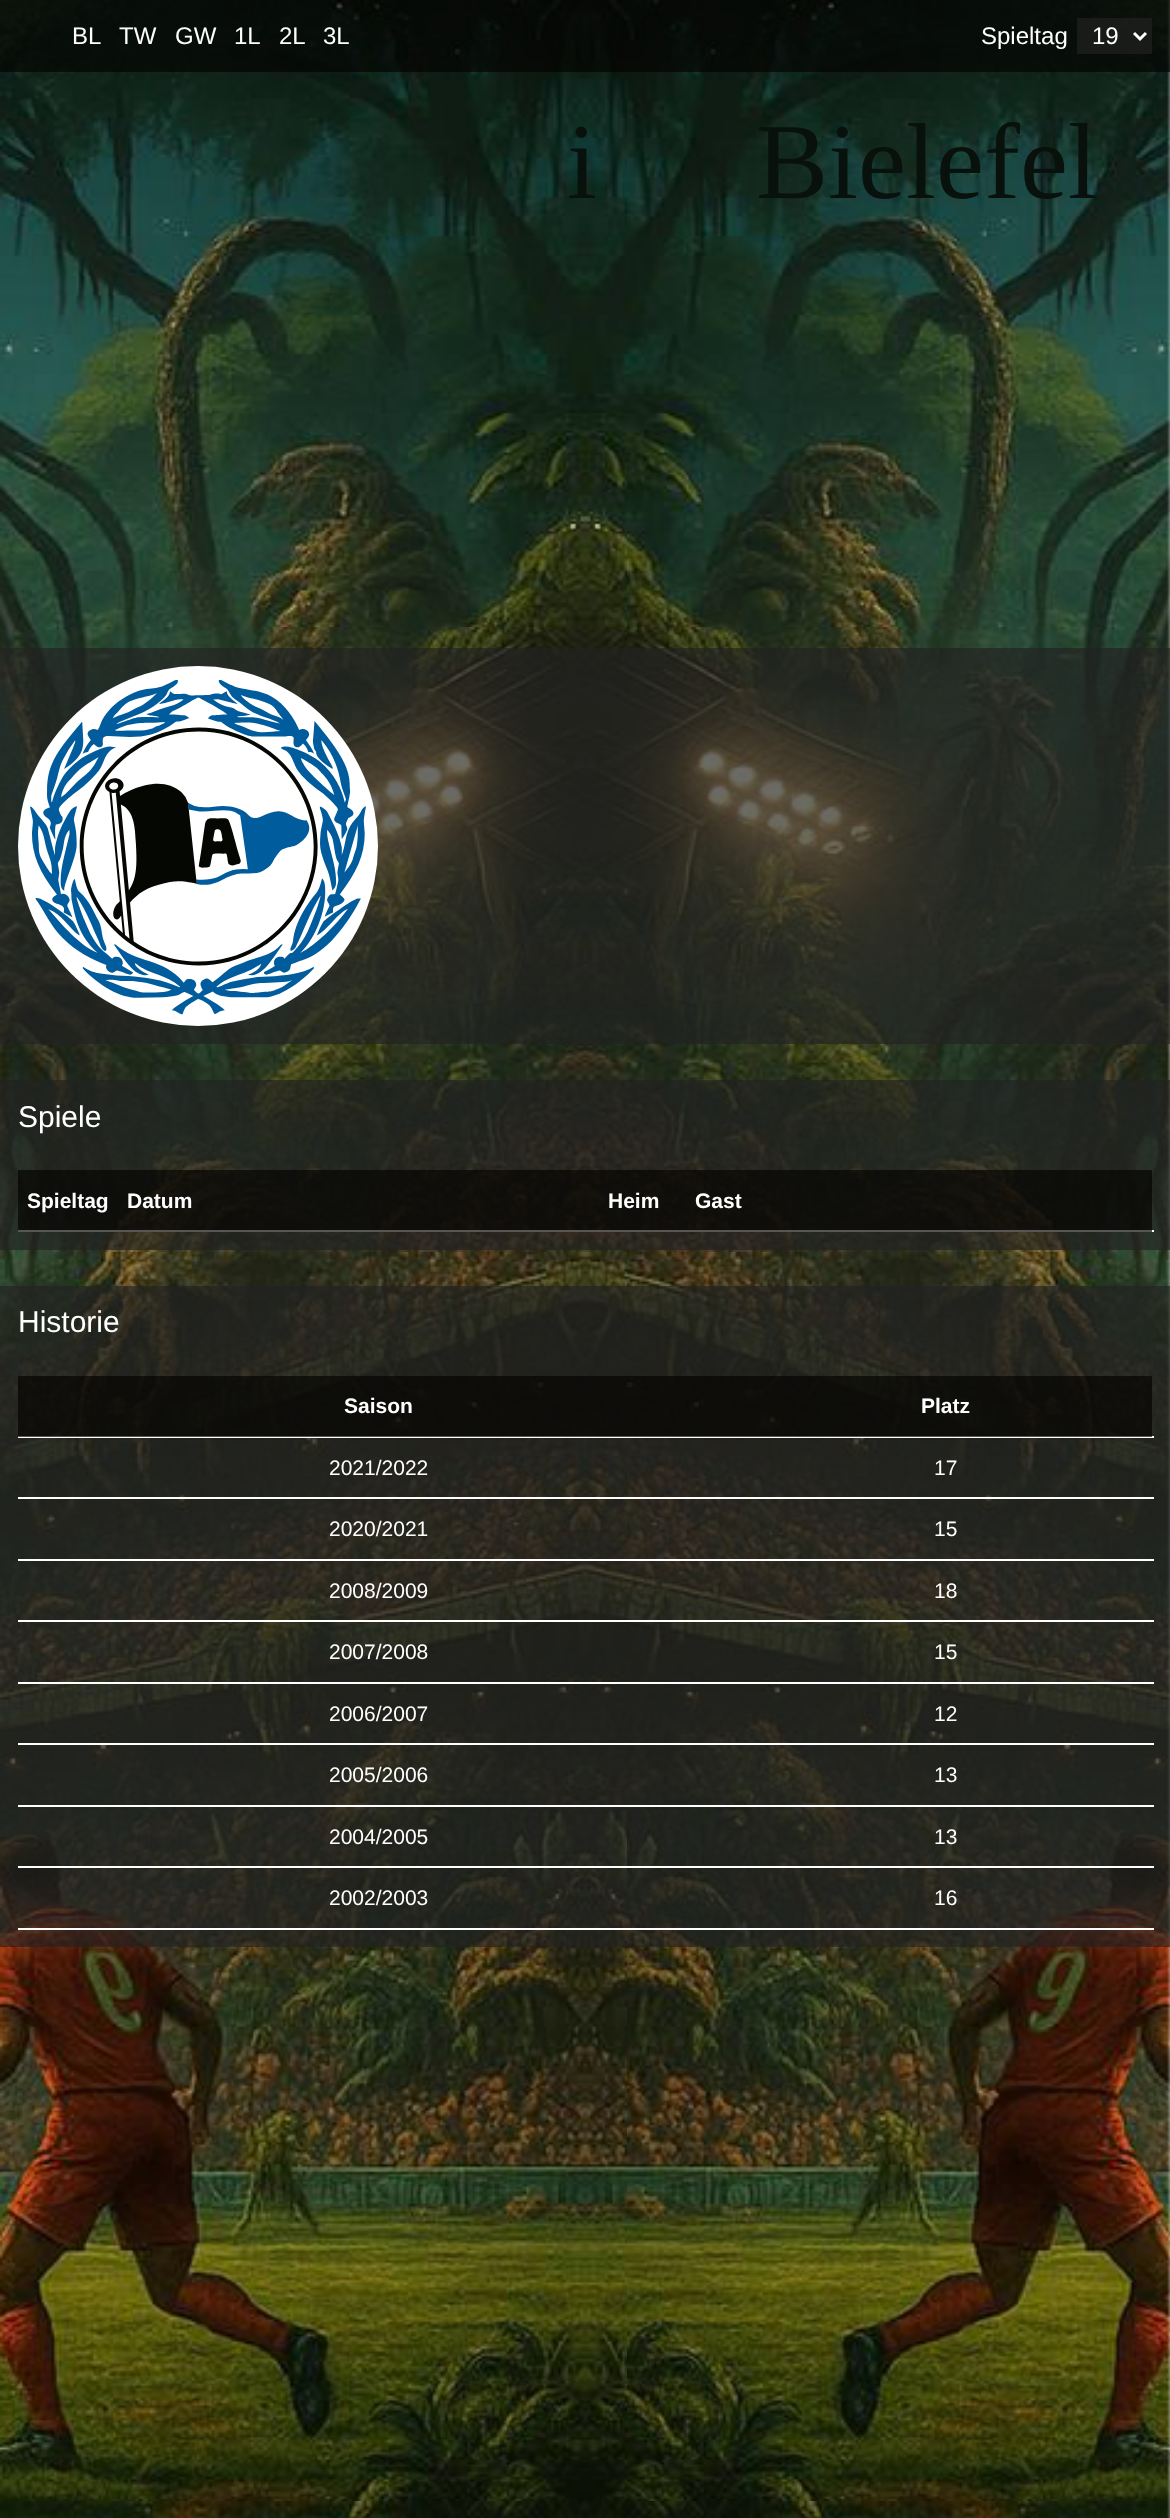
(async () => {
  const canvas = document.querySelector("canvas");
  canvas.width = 1170;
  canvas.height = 2518;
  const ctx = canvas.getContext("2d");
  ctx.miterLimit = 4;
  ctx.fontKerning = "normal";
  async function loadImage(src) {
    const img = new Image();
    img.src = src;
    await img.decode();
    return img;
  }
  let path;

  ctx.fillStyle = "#ffffff";
  ctx.fillRect(0, 0, 1170, 2518);
  ctx.drawImage(await loadImage("img/1.png"), 0, 0, 1170, 2518);
  ctx.fillStyle = "rgba(4, 3, 1, 0.67)";
  ctx.fillRect(0, 0, 1170, 72);
  ctx.fillStyle = "rgba(34, 34, 34, 0.67)";
  ctx.fillRect(1077, 18, 75, 36);
  path = new Path2D("M1134 33L1140 39L1146 33");
  ctx.strokeStyle = "#ffffff";
  ctx.lineWidth = 3;
  ctx.stroke(path);
  ctx.fillRect(0, 648, 1170, 396);
  ctx.drawImage(await loadImage("img/2.png"), 18, 666, 360, 360);
  for (const [x, y, w, h, color] of [
    [0, 1080, 1170, 170, "rgba(34, 34, 34, 0.67)"],
    [18, 1230, 1136, 2, "#ffffff"],
    [18, 1170, 1134, 62, "rgba(4, 3, 1, 0.67)"],
    [0, 1286, 1170, 661, "rgba(34, 34, 34, 0.67)"],
    [18, 1436, 1136, 2, "#ffffff"],
    [18, 1376, 1134, 61, "rgba(4, 3, 1, 0.67)"],
    [18, 1497, 1136, 2, "#ffffff"],
    [18, 1559, 1136, 2, "#ffffff"],
    [18, 1620, 1136, 2, "#ffffff"],
    [18, 1682, 1136, 2, "#ffffff"],
    [18, 1743, 1136, 2, "#ffffff"],
    [18, 1805, 1136, 2, "#ffffff"],
    [18, 1866, 1136, 2, "#ffffff"],
    [18, 1928, 1136, 2, "#ffffff"],
  ]) {
    ctx.fillStyle = color;
    ctx.fillRect(x, y, w, h);
  }
  ctx.font = "24px Liberation Sans";
  for (const [text, x, y] of [
    ["BL", 72, 44],
    ["TW", 119, 44],
    ["GW", 175, 44],
    ["1L", 234, 44],
    ["2L", 279, 44],
    ["3L", 323, 44],
    ["Spieltag", 981, 44],
    ["19", 1092, 44],
  ]) {
    ctx.fillText(text, x, y);
  }
  ctx.font = "108px Liberation Serif";
  ctx.fillStyle = "#09110d";
  ctx.fillText("i", 567, 198);
  ctx.fillText("Bielefel", 756, 198);
  ctx.font = "30px Liberation Sans";
  ctx.fillStyle = "#ffffff";
  ctx.fillText("Spiele", 18, 1127);
  ctx.font = "bold 21px Liberation Sans";
  for (const [text, x, y] of [
    ["Spieltag", 27, 1208],
    ["Datum", 127, 1208],
    ["Heim", 608, 1208],
    ["Gast", 695, 1208],
  ]) {
    ctx.fillText(text, x, y);
  }
  ctx.font = "30px Liberation Sans";
  ctx.fillText("Historie", 18, 1332);
  ctx.font = "bold 21px Liberation Sans";
  ctx.fillText("Saison", 344, 1413);
  ctx.fillText("Platz", 921, 1413);
  ctx.font = "21px Liberation Sans";
  for (const [text, x, y] of [
    ["2021/2022", 329, 1475],
    ["17", 934, 1475],
    ["2020/2021", 329, 1536],
    ["15", 934, 1536],
    ["2008/2009", 329, 1598],
    ["18", 934, 1598],
    ["2007/2008", 329, 1659],
    ["15", 934, 1659],
    ["2006/2007", 329, 1721],
    ["12", 934, 1721],
    ["2005/2006", 329, 1782],
    ["13", 934, 1782],
    ["2004/2005", 329, 1844],
    ["13", 934, 1844],
    ["2002/2003", 329, 1905],
    ["16", 934, 1905],
  ]) {
    ctx.fillText(text, x, y);
  }
})();
